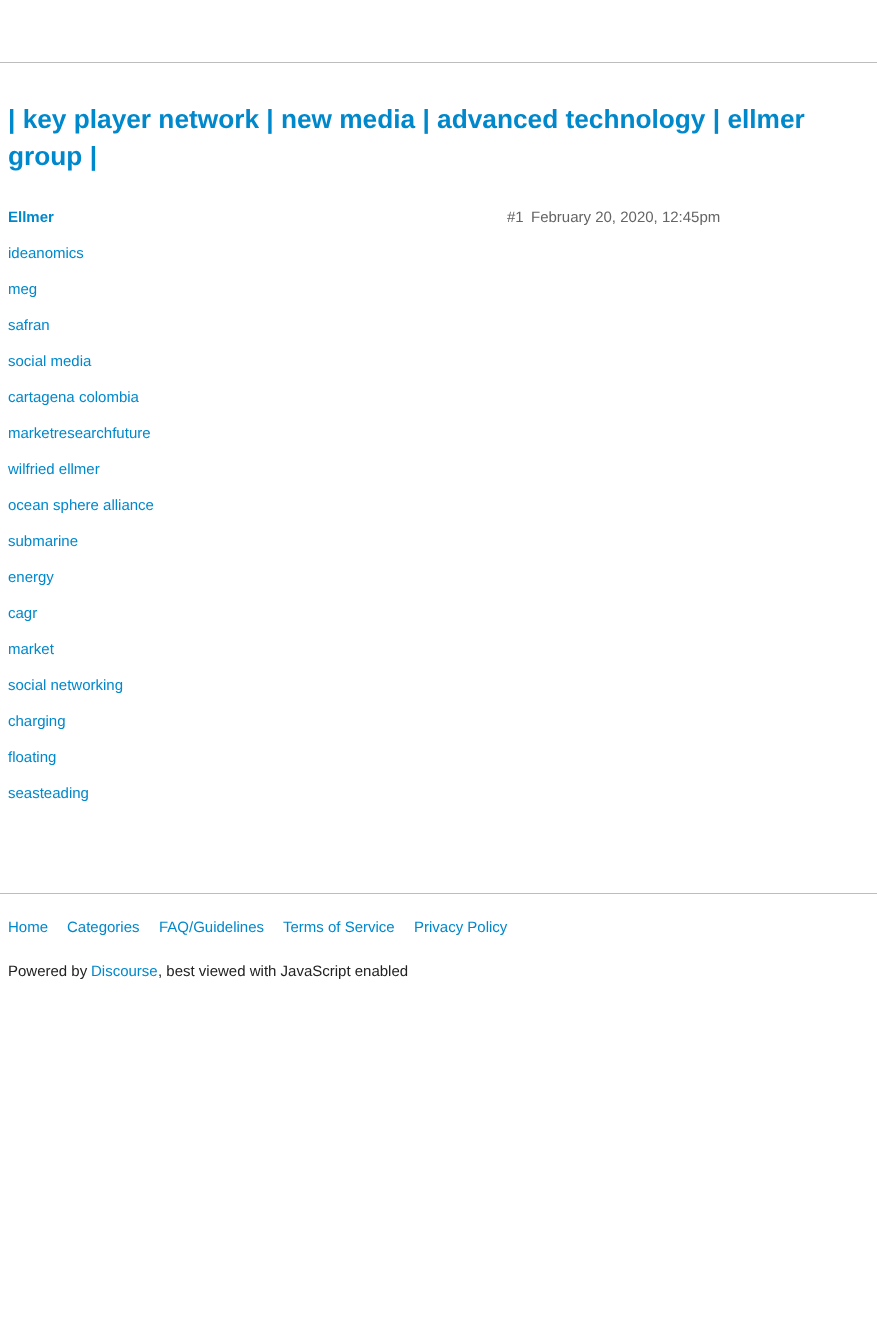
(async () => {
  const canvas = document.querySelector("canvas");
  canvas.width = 877;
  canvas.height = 1329;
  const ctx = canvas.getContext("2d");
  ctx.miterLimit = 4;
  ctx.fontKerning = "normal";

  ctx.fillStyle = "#ffffff";
  ctx.fillRect(0, 0, 877, 1329);
  ctx.fillStyle = "#bdbdbd";
  ctx.fillRect(0, 62, 877, 1);
  ctx.fillRect(0, 893, 877, 1);
  ctx.font = "bold 26.25px Liberation Sans";
  ctx.fillStyle = "#0088cc";
  ctx.fillText("| key player network | new media | advanced technology | ellmer", 8, 128);
  ctx.fillText("group |", 8, 165);
  ctx.font = "bold 15px Liberation Sans";
  ctx.fillText("Ellmer", 8, 222);
  ctx.font = "15px Liberation Sans";
  ctx.fillStyle = "#646464";
  ctx.fillText("#1", 507, 222);
  ctx.fillText("February 20, 2020, 12:45pm", 531, 222);
  ctx.fillStyle = "#0088cc";
  for (const [text, x, y] of [
    ["ideanomics", 8, 258],
    ["meg", 8, 294],
    ["safran", 8, 330],
    ["social media", 8, 366],
    ["cartagena colombia", 8, 402],
    ["marketresearchfuture", 8, 438],
    ["wilfried ellmer", 8, 474],
    ["ocean sphere alliance", 8, 510],
    ["submarine", 8, 546],
    ["energy", 8, 582],
    ["cagr", 8, 618],
    ["market", 8, 654],
    ["social networking", 8, 690],
    ["charging", 8, 726],
    ["floating", 8, 762],
    ["seasteading", 8, 798],
    ["Home", 8, 932],
    ["Categories", 67, 932],
    ["FAQ/Guidelines", 159, 932],
    ["Terms of Service", 283, 932],
    ["Privacy Policy", 414, 932],
  ]) {
    ctx.fillText(text, x, y);
  }
  ctx.fillStyle = "#222222";
  ctx.fillText("Powered by", 8, 976);
  ctx.fillStyle = "#0088cc";
  ctx.fillText("Discourse", 91, 976);
  ctx.fillStyle = "#222222";
  ctx.fillText(", best viewed with JavaScript enabled", 158, 976);
})();
